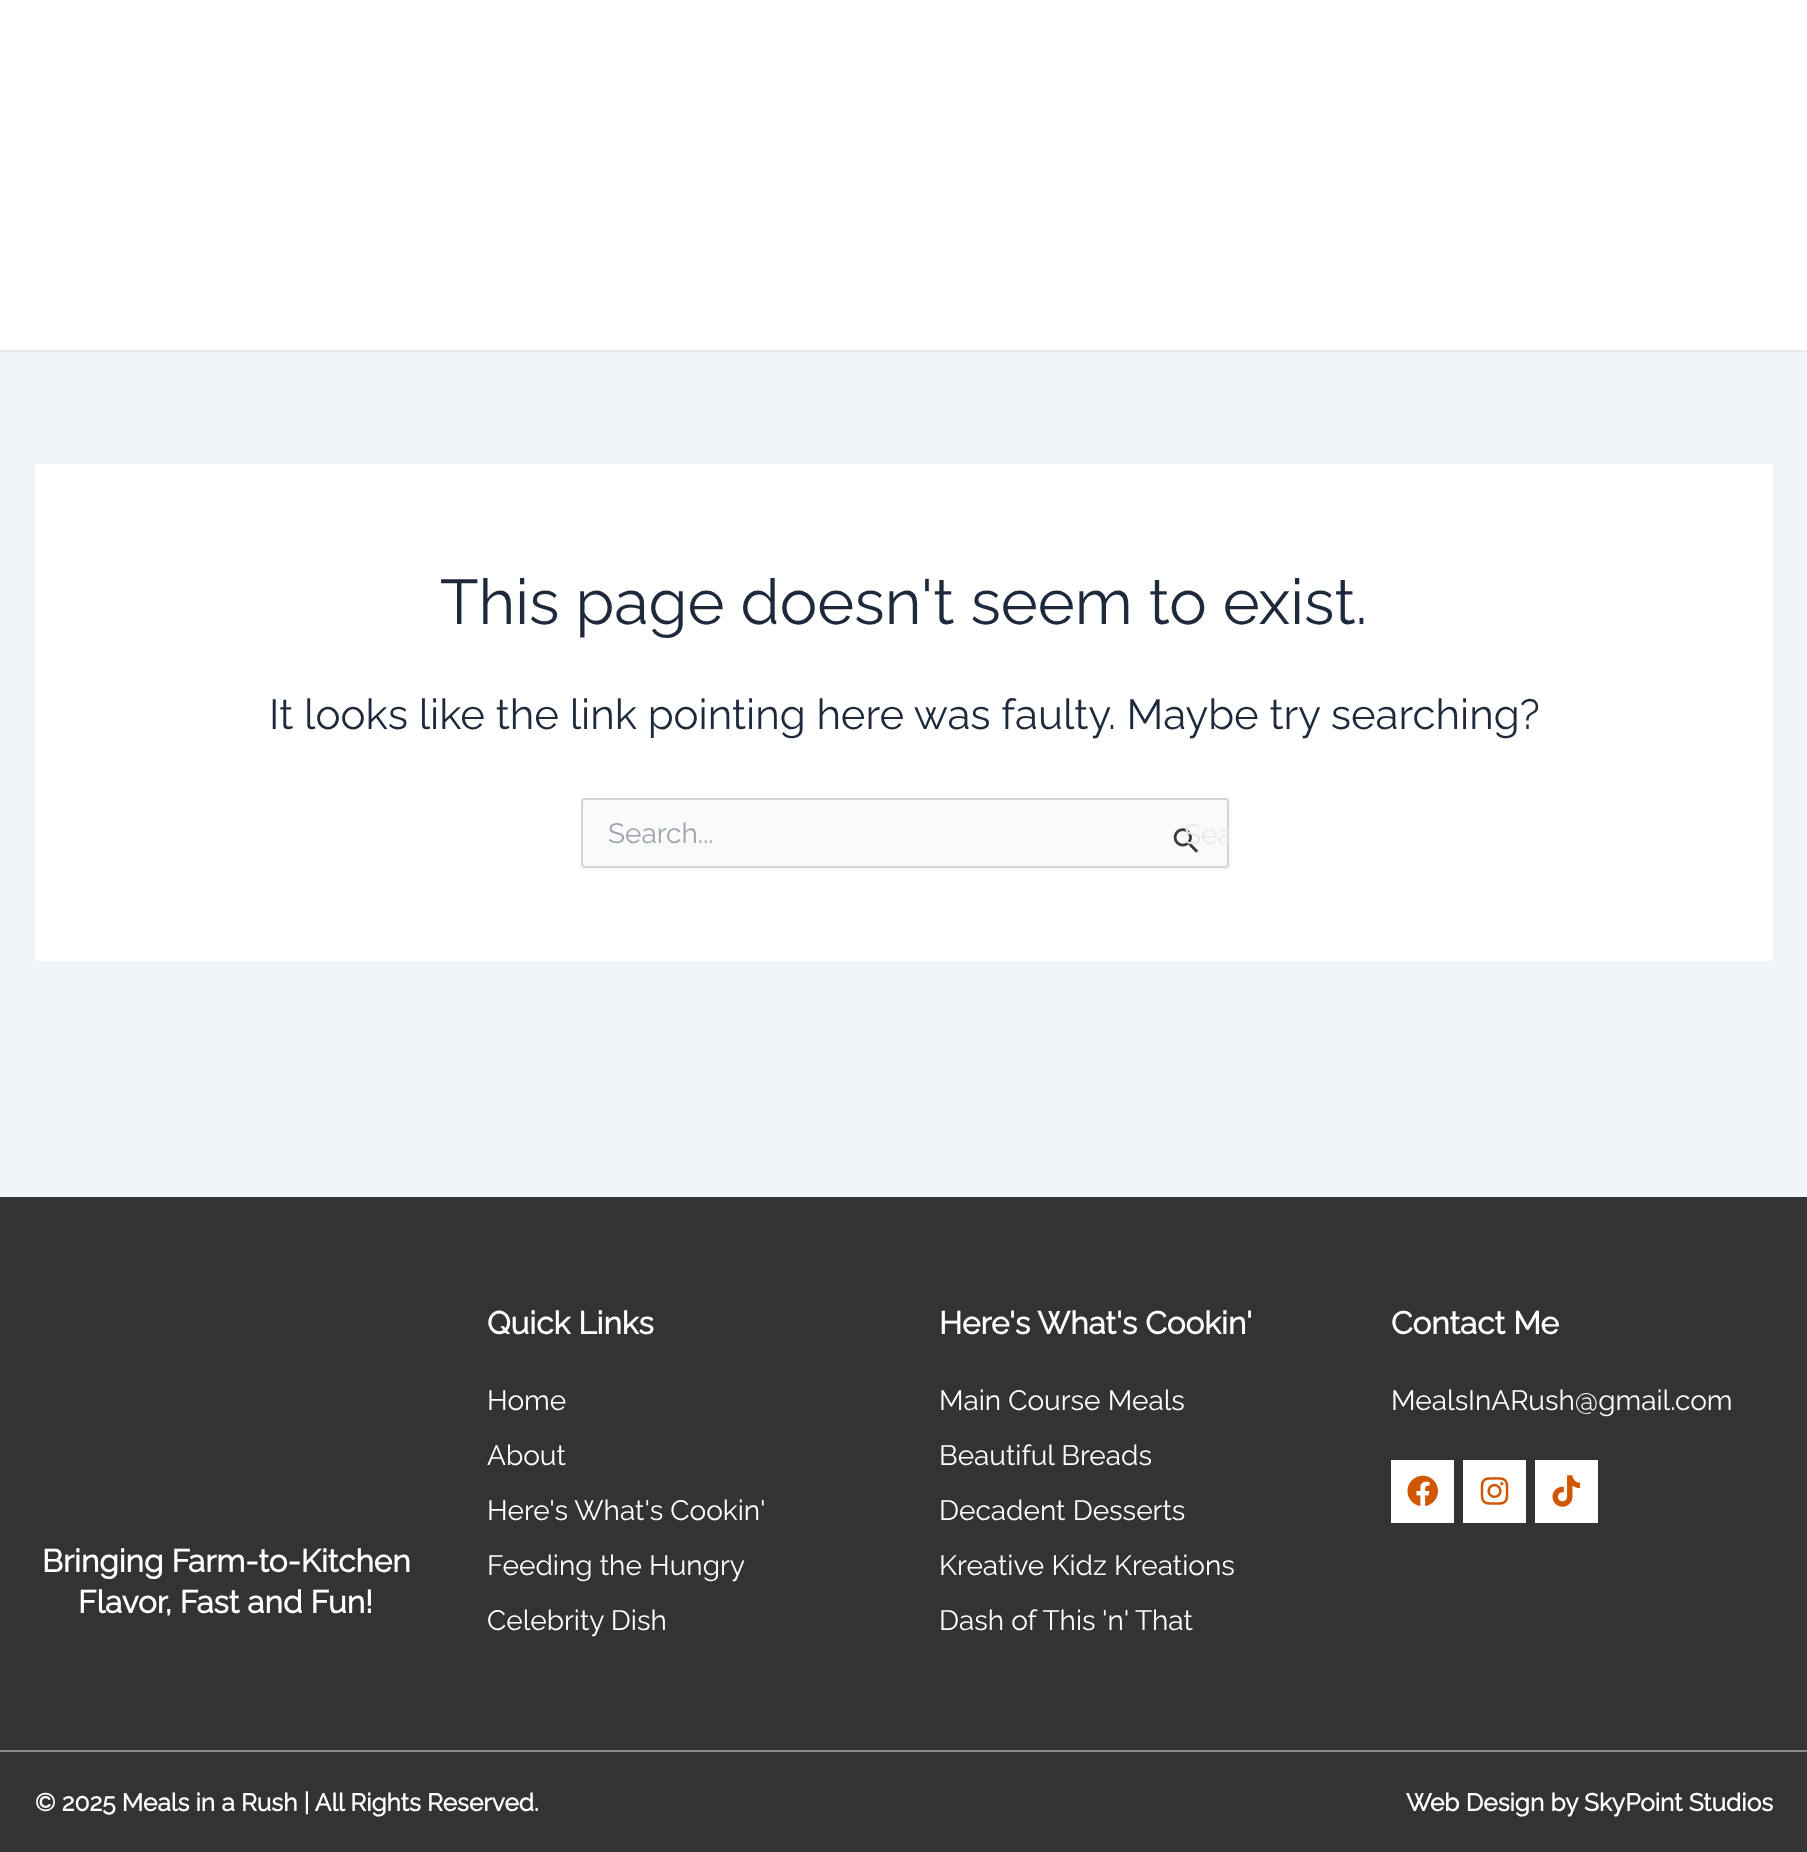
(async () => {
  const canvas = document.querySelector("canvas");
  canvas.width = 1807;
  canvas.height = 1852;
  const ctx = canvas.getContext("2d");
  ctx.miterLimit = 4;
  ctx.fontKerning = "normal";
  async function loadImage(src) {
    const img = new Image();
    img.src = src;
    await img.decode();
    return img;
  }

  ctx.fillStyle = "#f0f5fa";
  ctx.fillRect(0, 0, 1807, 1852);
  for (const [x, y, w, h, color] of [
    [0, 0, 1807, 350, "#ffffff"],
    [0, 350, 1807, 2, "#eaeaea"],
    [35, 464, 1738, 497, "#ffffff"],
  ]) {
    ctx.fillStyle = color;
    ctx.fillRect(x, y, w, h);
  }
  ctx.fillStyle = "rgba(0, 0, 0, 0.05)";
  ctx.filter = "blur(2px)";
  ctx.beginPath();
  ctx.roundRect(581, 800, 648, 70, 4);
  ctx.fill();
  ctx.filter = "none";
  ctx.fillStyle = "#fafafa";
  ctx.beginPath();
  ctx.roundRect(582, 799, 646, 68, 3);
  ctx.fill();
  ctx.strokeStyle = "#d1d5db";
  ctx.lineWidth = 2;
  ctx.stroke();
  ctx.drawImage(await loadImage("img/1.png"), 1173, 828, 26, 25);
  ctx.fillStyle = "#333333";
  ctx.fillRect(0, 1197, 1807, 553);
  ctx.fillStyle = "#ffffff";
  ctx.fillRect(1391, 1460, 63, 63);
  ctx.drawImage(await loadImage("img/2.png"), 1407, 1475, 31, 31);
  ctx.fillRect(1463, 1460, 63, 63);
  ctx.drawImage(await loadImage("img/3.png"), 1480, 1477, 29, 28);
  ctx.fillRect(1535, 1460, 63, 63);
  ctx.drawImage(await loadImage("img/4.png"), 1552, 1475, 29, 32);
  ctx.fillStyle = "#333333";
  ctx.fillRect(0, 1752, 1807, 100);
  ctx.fillStyle = "#8b8b8b";
  ctx.fillRect(0, 1750, 1807, 2);
  ctx.font = "100 63px Raleway";
  ctx.fillStyle = "#1e293b";
  ctx.fillText("This page doesn't seem to exist.", 440, 624);
  ctx.font = "100 42px Raleway";
  ctx.fillText("It looks like the link pointing here was faulty. Maybe try searching?", 269, 729);
  ctx.font = "100 28px Raleway";
  ctx.fillStyle = "#9ca3af";
  ctx.fillText("Search...", 608, 843);
  ctx.save();
  ctx.beginPath();
  ctx.roundRect(1150, 798, 79, 74, 4);
  ctx.clip();
  ctx.fillStyle = "#e7e8e8";
  ctx.fillText("Sea", 1184, 844);
  ctx.restore();
  ctx.font = "bold 31.5px Raleway";
  ctx.fillStyle = "#ffffff";
  ctx.fillText("Quick Links", 487, 1334);
  ctx.font = "100 28px Raleway";
  for (const [text, x, y] of [
    ["Home", 487, 1410],
    ["About", 487, 1465],
    ["Here's What's Cookin'", 487, 1520],
    ["Feeding the Hungry", 487, 1575],
    ["Celebrity Dish", 487, 1630],
  ]) {
    ctx.fillText(text, x, y);
  }
  ctx.font = "bold 31.5px Raleway";
  ctx.fillText("Here's What's Cookin'", 939, 1334);
  ctx.font = "100 28px Raleway";
  for (const [text, x, y] of [
    ["Main Course Meals", 939, 1410],
    ["Beautiful Breads", 939, 1465],
    ["Decadent Desserts", 939, 1520],
    ["Kreative Kidz Kreations", 939, 1575],
    ["Dash of This 'n' That", 939, 1630],
  ]) {
    ctx.fillText(text, x, y);
  }
  ctx.font = "bold 31.5px Raleway";
  ctx.fillText("Contact Me", 1391, 1334);
  ctx.font = "100 28px Raleway";
  ctx.fillText("MealsInARush@gmail.com", 1391, 1410);
  ctx.font = "bold 31.5px Raleway";
  ctx.fillText("Bringing Farm-to-Kitchen", 42, 1572);
  ctx.fillText("Flavor, Fast and Fun!", 78, 1613);
  ctx.font = "bold 24.5px Raleway";
  ctx.fillText("© 2025 Meals in a Rush | All Rights Reserved.", 35, 1811);
  ctx.fillText("Web Design by SkyPoint Studios", 1406, 1811);
})();
